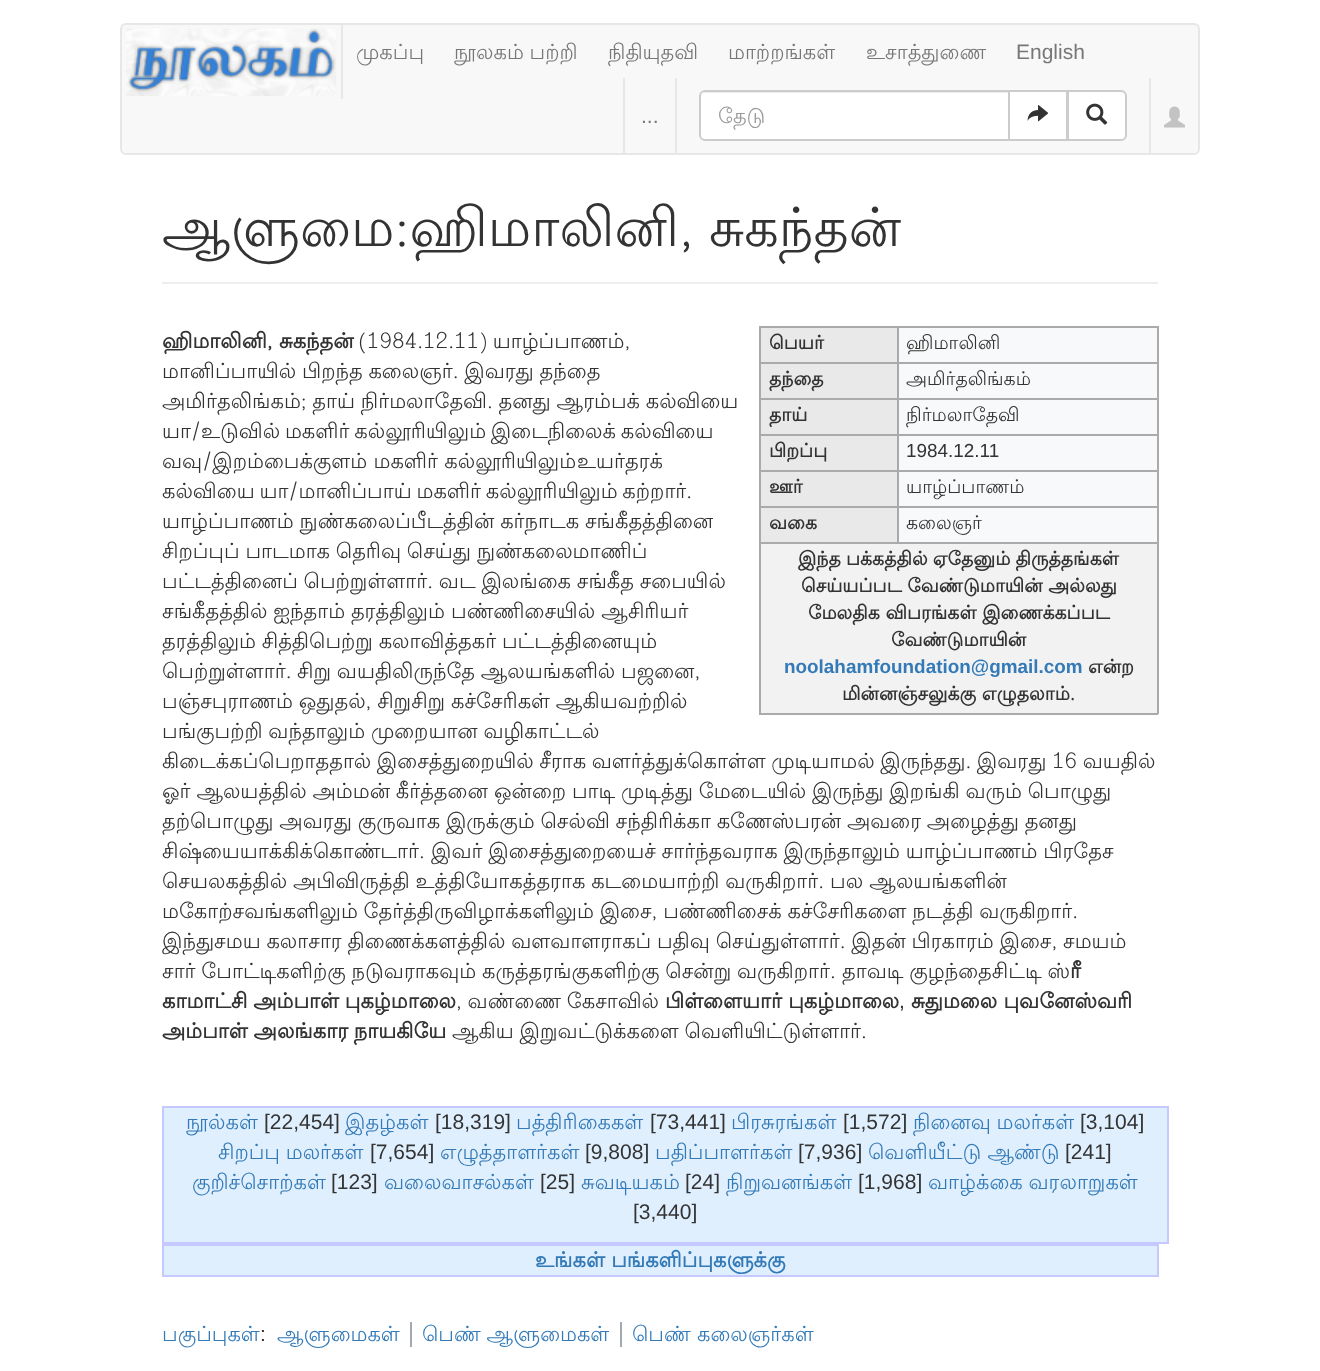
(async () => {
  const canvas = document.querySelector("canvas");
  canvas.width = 1320;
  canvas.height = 1371;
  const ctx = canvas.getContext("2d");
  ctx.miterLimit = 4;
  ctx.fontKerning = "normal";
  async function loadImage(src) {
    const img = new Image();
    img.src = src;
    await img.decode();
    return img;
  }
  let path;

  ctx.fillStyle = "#ffffff";
  ctx.fillRect(0, 0, 1320, 1371);
  ctx.fillStyle = "#f8f8f8";
  ctx.beginPath();
  ctx.roundRect(121, 24, 1078, 130, 5);
  ctx.fill();
  ctx.strokeStyle = "#e7e7e7";
  ctx.lineWidth = 2;
  ctx.stroke();
  ctx.fillStyle = "#e7e7e7";
  ctx.fillRect(341, 24, 2, 75);
  ctx.drawImage(await loadImage("img/1.png"), 126, 28, 210, 68);
  for (const [x, y, w, h, color] of [
    [675, 78, 2, 75, "#e7e7e7"],
    [623, 78, 2, 75, "#e7e7e7"],
    [1149, 78, 2, 75, "#e7e7e7"],
  ]) {
    ctx.fillStyle = color;
    ctx.fillRect(x, y, w, h);
  }
  ctx.fillStyle = "#ffffff";
  ctx.beginPath();
  ctx.roundRect(699, 90, 311, 51, [6, 0, 0, 6]);
  ctx.fill();
  ctx.fillStyle = "#ececec";
  path = new Path2D("M705 93H1008V92H705L703 93L702 94Z");
  ctx.fill(path);
  ctx.beginPath();
  ctx.roundRect(700, 91, 309, 49, [5, 0, 0, 5]);
  ctx.strokeStyle = "#cccccc";
  ctx.stroke();
  ctx.fillStyle = "#ffffff";
  ctx.beginPath();
  ctx.rect(1009, 91, 58, 49);
  ctx.fill();
  ctx.stroke();
  ctx.drawImage(await loadImage("img/2.png"), 1027, 105, 22, 17);
  ctx.beginPath();
  ctx.roundRect(1068, 91, 58, 49, [0, 5, 5, 0]);
  ctx.fill();
  ctx.stroke();
  ctx.drawImage(await loadImage("img/3.png"), 1086, 103, 22, 22);
  ctx.drawImage(await loadImage("img/4.png"), 1164, 106, 21, 22);
  for (const [x, y, w, h, color] of [
    [162, 282, 996, 2, "#eeeeee"],
    [899, 328, 258, 214, "#f8f9fa"],
    [761, 328, 136, 34, "#e9e9e9"],
    [897, 326, 261, 2, "#aaaaaa"],
    [897, 362, 261, 2, "#aaaaaa"],
    [897, 398, 261, 2, "#aaaaaa"],
    [897, 434, 261, 2, "#aaaaaa"],
    [897, 470, 261, 2, "#aaaaaa"],
    [897, 506, 261, 2, "#aaaaaa"],
    [759, 542, 399, 2, "#aaaaaa"],
    [897, 506, 2, 37, "#aaaaaa"],
    [759, 506, 140, 2, "#aaaaaa"],
    [897, 470, 2, 37, "#aaaaaa"],
    [759, 470, 140, 2, "#aaaaaa"],
    [897, 434, 2, 37, "#aaaaaa"],
    [759, 434, 140, 2, "#aaaaaa"],
    [897, 398, 2, 37, "#aaaaaa"],
    [759, 398, 140, 2, "#aaaaaa"],
    [897, 362, 2, 37, "#aaaaaa"],
    [759, 362, 140, 2, "#aaaaaa"],
    [897, 326, 2, 37, "#aaaaaa"],
    [759, 326, 140, 2, "#aaaaaa"],
    [1157, 542, 2, 172, "#aaaaaa"],
    [759, 713, 399, 2, "#aaaaaa"],
    [759, 542, 2, 172, "#aaaaaa"],
    [759, 506, 2, 37, "#aaaaaa"],
    [759, 470, 2, 37, "#aaaaaa"],
    [759, 434, 2, 37, "#aaaaaa"],
    [759, 398, 2, 37, "#aaaaaa"],
    [759, 362, 2, 37, "#aaaaaa"],
    [759, 326, 2, 37, "#aaaaaa"],
    [1157, 506, 2, 37, "#aaaaaa"],
    [1157, 470, 2, 37, "#aaaaaa"],
    [1157, 434, 2, 37, "#aaaaaa"],
    [1157, 398, 2, 37, "#aaaaaa"],
    [1157, 362, 2, 37, "#aaaaaa"],
    [1157, 326, 2, 37, "#aaaaaa"],
    [761, 364, 136, 34, "#e9e9e9"],
    [761, 400, 136, 34, "#e9e9e9"],
    [761, 436, 136, 34, "#e9e9e9"],
    [761, 472, 136, 34, "#e9e9e9"],
    [761, 508, 136, 34, "#e9e9e9"],
    [761, 544, 396, 169, "#f2f2f2"],
    [164, 1108, 1003, 134, "#dfeffe"],
    [162, 1106, 1007, 2, "#c6c9ff"],
    [1167, 1106, 2, 138, "#c6c9ff"],
    [162, 1242, 1007, 2, "#c6c9ff"],
    [162, 1106, 2, 138, "#c6c9ff"],
    [164, 1246, 993, 29, "#dfeffe"],
    [162, 1244, 996, 2, "#c6c9ff"],
    [1157, 1244, 2, 33, "#c6c9ff"],
    [162, 1275, 996, 2, "#c6c9ff"],
    [162, 1244, 2, 33, "#c6c9ff"],
    [410, 1322, 2, 25, "#a2a9b1"],
    [620, 1322, 2, 25, "#a2a9b1"],
  ]) {
    ctx.fillStyle = color;
    ctx.fillRect(x, y, w, h);
  }
  ctx.font = "21px Lohit Tamil";
  ctx.fillStyle = "#777777";
  ctx.fillText("முகப்பு", 356, 59);
  ctx.wordSpacing = "-0.5px";
  ctx.fillText("நூலகம் பற்றி", 454, 59);
  ctx.wordSpacing = "0px";
  for (const [text, x, y] of [
    ["நிதியுதவி", 608, 59],
    ["மாற்றங்கள்", 728, 59],
    ["உசாத்துணை", 866, 59],
  ]) {
    ctx.fillText(text, x, y);
  }
  ctx.font = "21px Liberation Sans";
  ctx.fillText("English", 1016, 59);
  ctx.fillText("...", 641, 123);
  ctx.save();
  ctx.beginPath();
  ctx.rect(719, 104, 271, 27);
  ctx.clip();
  ctx.font = "21px Lohit Tamil";
  ctx.fillStyle = "#999999";
  ctx.fillText("தேடு", 718, 123);
  ctx.restore();
  ctx.wordSpacing = "-1px";
  ctx.font = "54px Lohit Tamil";
  ctx.fillStyle = "#333333";
  ctx.fillText("ஆளுமை:ஹிமாலினி, சுகந்தன்", 162, 246);
  ctx.wordSpacing = "0px";
  ctx.font = "bold 21px Lohit Tamil";
  ctx.fillText("ஹிமாலினி, சுகந்தன்", 162, 348);
  ctx.wordSpacing = "-1.5px";
  ctx.font = "21px Lohit Tamil";
  ctx.fillText("(1984.12.11) யாழ்ப்பாணம்,", 358, 348);
  ctx.wordSpacing = "-0.5px";
  ctx.fillText("மானிப்பாயில் பிறந்த கலைஞர். இவரது தந்தை", 162, 378);
  ctx.fillText("அமிர்தலிங்கம்; தாய் நிர்மலாதேவி. தனது ஆரம்பக் கல்வியை", 162, 408);
  ctx.wordSpacing = "-1.5px";
  ctx.fillText("யா/உடுவில் மகளிர் கல்லூரியிலும் இடைநிலைக் கல்வியை", 162, 438);
  ctx.wordSpacing = "0px";
  ctx.fillText("வவு/இறம்பைக்குளம் மகளிர் கல்லூரியிலும்", 162, 468);
  ctx.fillText("உயர்தரக்", 577, 468);
  ctx.wordSpacing = "-1.5px";
  ctx.fillText("கல்வியை யா/மானிப்பாய் மகளிர் கல்லூரியிலும் கற்றார்.", 162, 498);
  ctx.wordSpacing = "-0.5px";
  ctx.fillText("யாழ்ப்பாணம் நுண்கலைப்பீடத்தின் கர்நாடக சங்கீதத்தினை", 162, 528);
  ctx.fillText("சிறப்புப் பாடமாக தெரிவு செய்து", 162, 558);
  ctx.wordSpacing = "0px";
  ctx.fillText("நுண்கலைமாணிப்", 477, 558);
  ctx.wordSpacing = "-0.5px";
  ctx.fillText("பட்டத்தினைப் பெற்றுள்ளார். வட இலங்கை சங்கீத சபையில்", 162, 588);
  ctx.fillText("சங்கீதத்தில் ஐந்தாம் தரத்திலும்", 162, 618);
  ctx.wordSpacing = "0px";
  ctx.fillText("பண்ணிசையில் ஆசிரியர்", 451, 618);
  ctx.wordSpacing = "-0.5px";
  ctx.fillText("தரத்திலும் சித்திபெற்று கலாவித்தகர் பட்டத்தினையும்", 162, 648);
  ctx.wordSpacing = "0px";
  ctx.fillText("பெற்றுள்ளார்.", 162, 678);
  ctx.wordSpacing = "-0.5px";
  for (const [text, x, y] of [
    ["சிறு வயதிலிருந்தே ஆலயங்களில் பஜனை,", 297, 678],
    ["பஞ்சபுராணம் ஒதுதல், சிறுசிறு கச்சேரிகள் ஆகியவற்றில்", 162, 708],
    ["பங்குபற்றி வந்தாலும் முறையான வழிகாட்டல்", 162, 738],
  ]) {
    ctx.fillText(text, x, y);
  }
  ctx.wordSpacing = "-0.75px";
  ctx.fillText("கிடைக்கப்பெறாததால் இசைத்துறையில் சீராக வளர்த்துக்கொள்ள முடியாமல் இருந்தது. இவரது 16 வயதில்", 162, 768);
  ctx.wordSpacing = "-0.5px";
  for (const [text, x, y] of [
    ["ஓர் ஆலயத்தில் அம்மன் கீர்த்தனை", 162, 798],
    ["ஒன்றை பாடி முடித்து மேடையில் இருந்து இறங்கி வரும் பொழுது", 494, 798],
    ["தற்பொழுது அவரது குருவாக இருக்கும் செல்வி சந்திரிக்கா கணேஸ்பரன் அவரை அழைத்து தனது", 162, 828],
  ]) {
    ctx.fillText(text, x, y);
  }
  ctx.wordSpacing = "0px";
  ctx.fillText("சிஷ்யையாக்கிக்கொண்டார்.", 162, 858);
  ctx.wordSpacing = "-0.5px";
  ctx.fillText("இவர் இசைத்துறையைச் சார்ந்தவராக இருந்தாலும் யாழ்ப்பாணம் பிரதேச", 431, 858);
  ctx.fillText("செயலகத்தில் அபிவிருத்தி உத்தியோகத்தராக கடமையாற்றி வருகிறார்.", 162, 888);
  ctx.wordSpacing = "0px";
  ctx.fillText("பல ஆலயங்களின்", 830, 888);
  ctx.wordSpacing = "-0.5px";
  for (const [text, x, y] of [
    ["மகோற்சவங்களிலும் தேர்த்திருவிழாக்களிலும் இசை, பண்ணிசைக் கச்சேரிகளை நடத்தி வருகிறார்.", 162, 918],
    ["இந்துசமய கலாசார திணைக்களத்தில் வளவாளராகப் பதிவு செய்துள்ளார். இதன் பிரகாரம் இசை, சமயம்", 162, 948],
    ["சார் போட்டிகளிற்கு நடுவராகவும்", 162, 978],
    ["கருத்தரங்குகளிற்கு சென்று வருகிறார்.", 482, 978],
    ["தாவடி குழந்தைசிட்டி ஸ்", 842, 978],
  ]) {
    ctx.fillText(text, x, y);
  }
  ctx.wordSpacing = "0px";
  ctx.font = "bold 21px Lohit Tamil";
  ctx.fillText("ரீ", 1070, 978);
  ctx.wordSpacing = "-0.5px";
  ctx.fillText("காமாட்சி அம்பாள் புகழ்மாலை", 162, 1008);
  ctx.font = "21px Lohit Tamil";
  ctx.fillText(", வண்ணை கேசாவில்", 456, 1008);
  ctx.wordSpacing = "0px";
  ctx.font = "bold 21px Lohit Tamil";
  ctx.fillText("பிள்ளையார் புகழ்மாலை", 665, 1008);
  ctx.font = "21px Liberation Sans";
  ctx.fillText(",", 899, 1008);
  ctx.font = "bold 21px Lohit Tamil";
  ctx.fillText("சுதுமலை புவனேஸ்வரி", 911, 1008);
  ctx.wordSpacing = "-0.5px";
  ctx.fillText("அம்பாள் அலங்கார நாயகியே", 162, 1038);
  ctx.font = "21px Lohit Tamil";
  ctx.fillText("ஆகிய இறுவட்டுக்களை வெளியிட்டுள்ளார்.", 452, 1038);
  ctx.wordSpacing = "0px";
  ctx.font = "bold 18.9px Lohit Tamil";
  ctx.fillText("பெயர்", 769, 349);
  ctx.font = "18.9px Lohit Tamil";
  ctx.fillText("ஹிமாலினி", 906, 349);
  ctx.font = "bold 18.9px Lohit Tamil";
  ctx.fillText("தந்தை", 769, 385);
  ctx.font = "18.9px Lohit Tamil";
  ctx.fillText("அமிர்தலிங்கம்", 906, 385);
  ctx.font = "bold 18.9px Lohit Tamil";
  ctx.fillText("தாய்", 769, 421);
  ctx.font = "18.9px Lohit Tamil";
  ctx.fillText("நிர்மலாதேவி", 906, 421);
  ctx.font = "bold 18.9px Lohit Tamil";
  ctx.fillText("பிறப்பு", 769, 457);
  ctx.font = "18.9px Liberation Sans";
  ctx.fillText("1984.12.11", 906, 457);
  ctx.font = "bold 18.9px Lohit Tamil";
  ctx.fillText("ஊர்", 769, 493);
  ctx.font = "18.9px Lohit Tamil";
  ctx.fillText("யாழ்ப்பாணம்", 906, 493);
  ctx.font = "bold 18.9px Lohit Tamil";
  ctx.fillText("வகை", 769, 529);
  ctx.font = "18.9px Lohit Tamil";
  ctx.fillText("கலைஞர்", 906, 529);
  ctx.wordSpacing = "-0.5px";
  ctx.font = "bold 18.9px Lohit Tamil";
  ctx.fillText("இந்த பக்கத்தில் ஏதேனும் திருத்தங்கள்", 798, 565);
  ctx.wordSpacing = "0px";
  for (const [text, x, y] of [
    ["செய்யப்பட வேண்டுமாயின் அல்லது", 801, 592],
    ["மேலதிக விபரங்கள் இணைக்கப்பட", 808, 619],
    ["வேண்டுமாயின்", 891, 646],
  ]) {
    ctx.fillText(text, x, y);
  }
  ctx.font = "bold 18.9px Liberation Sans";
  ctx.fillStyle = "#337ab7";
  ctx.fillText("noolahamfoundation@gmail.com", 784, 673);
  ctx.font = "bold 18.9px Lohit Tamil";
  ctx.fillStyle = "#333333";
  ctx.fillText("என்ற", 1088, 673);
  ctx.fillText("மின்னஞ்சலுக்கு எழுதலாம்.", 842, 700);
  ctx.font = "21px Lohit Tamil";
  ctx.fillStyle = "#337ab7";
  ctx.fillText("நூல்கள்", 186, 1129);
  ctx.font = "21px Liberation Sans";
  ctx.fillStyle = "#333333";
  ctx.fillText("[22,454]", 264, 1129);
  ctx.font = "21px Lohit Tamil";
  ctx.fillStyle = "#337ab7";
  ctx.fillText("இதழ்கள்", 345, 1129);
  ctx.font = "21px Liberation Sans";
  ctx.fillStyle = "#333333";
  ctx.fillText("[18,319]", 435, 1129);
  ctx.font = "21px Lohit Tamil";
  ctx.fillStyle = "#337ab7";
  ctx.fillText("பத்திரிகைகள்", 516, 1129);
  ctx.font = "21px Liberation Sans";
  ctx.fillStyle = "#333333";
  ctx.fillText("[73,441]", 650, 1129);
  ctx.font = "21px Lohit Tamil";
  ctx.fillStyle = "#337ab7";
  ctx.fillText("பிரசுரங்கள்", 731, 1129);
  ctx.font = "21px Liberation Sans";
  ctx.fillStyle = "#333333";
  ctx.fillText("[1,572]", 843, 1129);
  ctx.wordSpacing = "-0.5px";
  ctx.font = "21px Lohit Tamil";
  ctx.fillStyle = "#337ab7";
  ctx.fillText("நினைவு மலர்கள்", 913, 1129);
  ctx.wordSpacing = "0px";
  ctx.font = "21px Liberation Sans";
  ctx.fillStyle = "#333333";
  ctx.fillText("[3,104]", 1080, 1129);
  ctx.wordSpacing = "-0.5px";
  ctx.font = "21px Lohit Tamil";
  ctx.fillStyle = "#337ab7";
  ctx.fillText("சிறப்பு மலர்கள்", 218, 1159);
  ctx.wordSpacing = "0px";
  ctx.font = "21px Liberation Sans";
  ctx.fillStyle = "#333333";
  ctx.fillText("[7,654]", 370, 1159);
  ctx.font = "21px Lohit Tamil";
  ctx.fillStyle = "#337ab7";
  ctx.fillText("எழுத்தாளர்கள்", 440, 1159);
  ctx.font = "21px Liberation Sans";
  ctx.fillStyle = "#333333";
  ctx.fillText("[9,808]", 585, 1159);
  ctx.font = "21px Lohit Tamil";
  ctx.fillStyle = "#337ab7";
  ctx.fillText("பதிப்பாளர்கள்", 655, 1159);
  ctx.font = "21px Liberation Sans";
  ctx.fillStyle = "#333333";
  ctx.fillText("[7,936]", 798, 1159);
  ctx.font = "21px Lohit Tamil";
  ctx.fillStyle = "#337ab7";
  ctx.fillText("வெளியீட்டு ஆண்டு", 868, 1159);
  ctx.font = "21px Liberation Sans";
  ctx.fillStyle = "#333333";
  ctx.fillText("[241]", 1065, 1159);
  ctx.font = "21px Lohit Tamil";
  ctx.fillStyle = "#337ab7";
  ctx.fillText("குறிச்சொற்கள்", 192, 1189);
  ctx.font = "21px Liberation Sans";
  ctx.fillStyle = "#333333";
  ctx.fillText("[123]", 331, 1189);
  ctx.font = "21px Lohit Tamil";
  ctx.fillStyle = "#337ab7";
  ctx.fillText("வலைவாசல்கள்", 384, 1189);
  ctx.font = "21px Liberation Sans";
  ctx.fillStyle = "#333333";
  ctx.fillText("[25]", 540, 1189);
  ctx.font = "21px Lohit Tamil";
  ctx.fillStyle = "#337ab7";
  ctx.fillText("சுவடியகம்", 581, 1189);
  ctx.font = "21px Liberation Sans";
  ctx.fillStyle = "#333333";
  ctx.fillText("[24]", 685, 1189);
  ctx.font = "21px Lohit Tamil";
  ctx.fillStyle = "#337ab7";
  ctx.fillText("நிறுவனங்கள்", 726, 1189);
  ctx.font = "21px Liberation Sans";
  ctx.fillStyle = "#333333";
  ctx.fillText("[1,968]", 858, 1189);
  ctx.wordSpacing = "-0.5px";
  ctx.font = "21px Lohit Tamil";
  ctx.fillStyle = "#337ab7";
  ctx.fillText("வாழ்க்கை வரலாறுகள்", 928, 1189);
  ctx.wordSpacing = "0px";
  ctx.font = "21px Liberation Sans";
  ctx.fillStyle = "#333333";
  ctx.fillText("[3,440]", 633, 1219);
  ctx.font = "bold 21px Lohit Tamil";
  ctx.fillStyle = "#337ab7";
  ctx.fillText("உங்கள் பங்களிப்புகளுக்கு", 535, 1267);
  ctx.font = "21px Lohit Tamil";
  ctx.fillText("பகுப்புகள்", 162, 1341);
  ctx.font = "21px Liberation Sans";
  ctx.fillStyle = "#333333";
  ctx.fillText(":", 260, 1341);
  ctx.font = "21px Lohit Tamil";
  ctx.fillStyle = "#337ab7";
  ctx.fillText("ஆளுமைகள்", 277, 1341);
  ctx.wordSpacing = "-0.5px";
  ctx.fillText("பெண் ஆளுமைகள்", 422, 1341);
  ctx.wordSpacing = "0px";
  ctx.fillText("பெண் கலைஞர்கள்", 632, 1341);
})();
